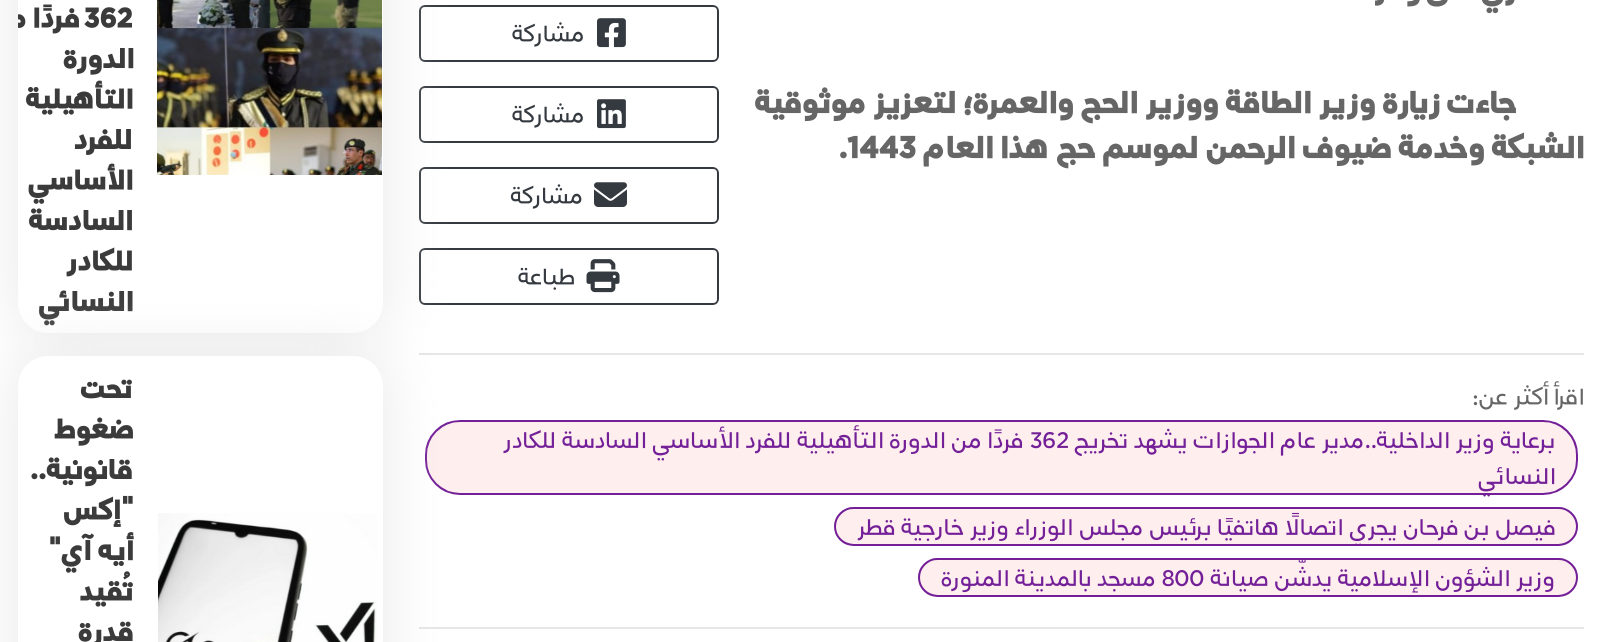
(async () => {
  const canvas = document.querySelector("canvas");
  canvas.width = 1602;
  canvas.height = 642;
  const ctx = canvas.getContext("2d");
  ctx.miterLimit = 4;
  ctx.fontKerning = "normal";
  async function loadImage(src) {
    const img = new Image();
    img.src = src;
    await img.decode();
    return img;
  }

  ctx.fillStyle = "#ffffff";
  ctx.fillRect(0, 0, 1602, 642);
  ctx.beginPath();
  ctx.roundRect(420, 6, 298, 55, 5);
  ctx.strokeStyle = "#343a40";
  ctx.lineWidth = 2;
  ctx.stroke();
  ctx.beginPath();
  ctx.roundRect(420, 87, 298, 55, 5);
  ctx.stroke();
  ctx.beginPath();
  ctx.roundRect(420, 168, 298, 55, 5);
  ctx.stroke();
  ctx.beginPath();
  ctx.roundRect(420, 249, 298, 55, 5);
  ctx.stroke();
  ctx.fillStyle = "#e6e6e6";
  ctx.fillRect(419, 353, 1165, 2);
  ctx.fillStyle = "#feeeee";
  ctx.beginPath();
  ctx.roundRect(426, 421, 1151, 73, 34);
  ctx.fill();
  ctx.strokeStyle = "#731f98";
  ctx.stroke();
  ctx.fillStyle = "#e7e7e7";
  ctx.filter = "blur(30px)";
  ctx.beginPath();
  ctx.roundRect(18, -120, 365, 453, 30);
  ctx.fill();
  ctx.filter = "none";
  ctx.fillStyle = "#ffffff";
  ctx.beginPath();
  ctx.roundRect(18, -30, 365, 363, 30);
  ctx.fill();
  ctx.drawImage(await loadImage("img/1.png"), 18, 4, 61, 30);
  ctx.drawImage(await loadImage("img/2.png"), 84, 7, 48, 21);
  ctx.drawImage(await loadImage("img/3.png"), 63, 48, 71, 27);
  ctx.drawImage(await loadImage("img/4.png"), 26, 80, 107, 35);
  ctx.drawImage(await loadImage("img/5.png"), 74, 129, 57, 26);
  ctx.drawImage(await loadImage("img/6.png"), 28, 163, 105, 41);
  ctx.drawImage(await loadImage("img/7.png"), 29, 208, 103, 23);
  ctx.drawImage(await loadImage("img/8.png"), 66, 247, 66, 30);
  ctx.drawImage(await loadImage("img/9.png"), 39, 290, 94, 36);
  ctx.drawImage(await loadImage("img/10.png"), 157, 0, 225, 175);
  ctx.fillStyle = "#e6e6e6";
  ctx.fillRect(419, 627, 1165, 2);
  ctx.fillStyle = "#e7e7e7";
  ctx.filter = "blur(30px)";
  ctx.beginPath();
  ctx.roundRect(18, 356, 365, 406, 30);
  ctx.fill();
  ctx.filter = "none";
  ctx.fillStyle = "#ffffff";
  ctx.beginPath();
  ctx.roundRect(18, 356, 365, 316, 30);
  ctx.fill();
  ctx.drawImage(await loadImage("img/11.png"), 80, 379, 52, 20);
  ctx.drawImage(await loadImage("img/12.png"), 54, 417, 79, 29);
  ctx.drawImage(await loadImage("img/13.png"), 31, 457, 101, 30);
  ctx.drawImage(await loadImage("img/14.png"), 64, 495, 69, 32);
  ctx.drawImage(await loadImage("img/15.png"), 50, 532, 84, 41);
  ctx.drawImage(await loadImage("img/16.png"), 80, 571, 53, 36);
  ctx.drawImage(await loadImage("img/17.png"), 78, 621, 55, 21);
  ctx.drawImage(await loadImage("img/18.png"), 158, 513, 219, 129);
  ctx.drawImage(await loadImage("img/19.png"), 512, 22, 71, 25);
  ctx.drawImage(await loadImage("img/20.png"), 597, 18, 29, 30);
  ctx.drawImage(await loadImage("img/19.png"), 512, 103, 71, 25);
  ctx.drawImage(await loadImage("img/21.png"), 597, 99, 29, 30);
  ctx.drawImage(await loadImage("img/22.png"), 510, 184, 72, 25);
  ctx.drawImage(await loadImage("img/23.png"), 594, 182, 33, 25);
  ctx.drawImage(await loadImage("img/24.png"), 518, 267, 56, 23);
  ctx.drawImage(await loadImage("img/25.png"), 586, 259, 34, 34);
  ctx.drawImage(await loadImage("img/26.png"), 1375, 0, 140, 14);
  ctx.drawImage(await loadImage("img/27.png"), 755, 87, 761, 37);
  ctx.drawImage(await loadImage("img/28.png"), 840, 151, 7, 8);
  ctx.drawImage(await loadImage("img/29.png"), 847, 135, 69, 24);
  ctx.drawImage(await loadImage("img/30.png"), 923, 131, 661, 38);
  ctx.drawImage(await loadImage("img/31.png"), 1473, 381, 110, 29);
  ctx.drawImage(await loadImage("img/32.png"), 503, 425, 520, 36);
  ctx.drawImage(await loadImage("img/33.png"), 1030, 432, 38, 17);
  ctx.drawImage(await loadImage("img/34.png"), 1074, 428, 480, 29);
  ctx.drawImage(await loadImage("img/35.png"), 1478, 467, 77, 30);
  ctx.fillStyle = "#feeeee";
  ctx.beginPath();
  ctx.roundRect(835, 508, 742, 37, 18.5);
  ctx.fill();
  ctx.stroke();
  ctx.drawImage(await loadImage("img/36.png"), 857, 512, 698, 35);
  ctx.beginPath();
  ctx.roundRect(919, 559, 658, 37, 18.5);
  ctx.fill();
  ctx.stroke();
  ctx.drawImage(await loadImage("img/37.png"), 941, 569, 214, 24);
  ctx.drawImage(await loadImage("img/38.png"), 1162, 570, 42, 17);
  ctx.drawImage(await loadImage("img/39.png"), 1210, 560, 344, 33);
})();
